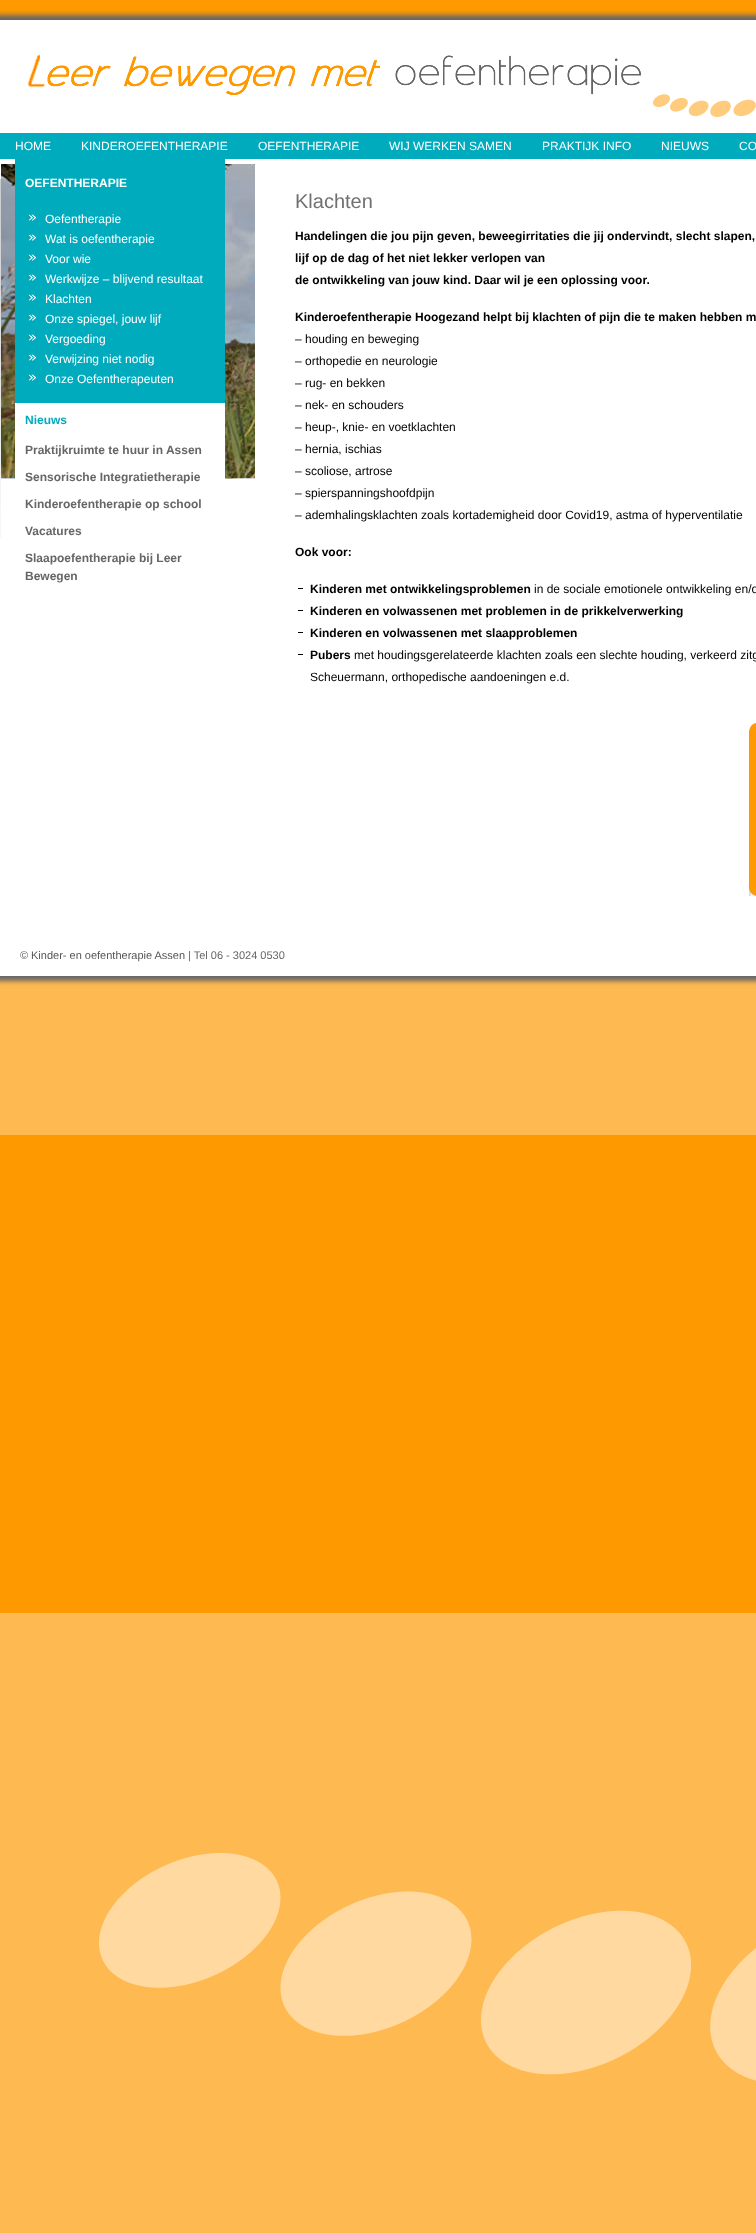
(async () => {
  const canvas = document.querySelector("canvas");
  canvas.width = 756;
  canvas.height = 2233;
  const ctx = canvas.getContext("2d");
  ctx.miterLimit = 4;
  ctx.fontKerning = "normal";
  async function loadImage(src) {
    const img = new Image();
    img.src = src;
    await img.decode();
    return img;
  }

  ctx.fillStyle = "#ffffff";
  ctx.fillRect(0, 0, 756, 2233);
  ctx.drawImage(await loadImage("img/1.png"), 0, 0, 756, 2233);
  ctx.fillStyle = "#666666";
  ctx.filter = "blur(2.5px)";
  ctx.beginPath();
  ctx.rect(-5, 15, 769, 966);
  ctx.fill();
  ctx.filter = "none";
  ctx.fillStyle = "#ffffff";
  ctx.fillRect(0, 20, 756, 956);
  ctx.drawImage(await loadImage("img/2.png"), 1, 164, 254, 315);
  ctx.drawImage(await loadImage("img/3.png"), 27, 54, 729, 63);
  ctx.fillStyle = "#00abbd";
  ctx.fillRect(0, 133, 756, 26);
  ctx.drawImage(await loadImage("img/4.png"), 0, 164, 1, 374);
  ctx.fillRect(15, 159, 210, 244);
  ctx.drawImage(await loadImage("img/5.png"), 28, 213, 8, 8);
  ctx.drawImage(await loadImage("img/5.png"), 28, 233, 8, 8);
  ctx.drawImage(await loadImage("img/5.png"), 28, 253, 8, 8);
  ctx.drawImage(await loadImage("img/5.png"), 28, 273, 8, 8);
  ctx.drawImage(await loadImage("img/5.png"), 28, 293, 8, 8);
  ctx.drawImage(await loadImage("img/5.png"), 28, 313, 8, 8);
  ctx.drawImage(await loadImage("img/5.png"), 28, 333, 8, 8);
  ctx.drawImage(await loadImage("img/5.png"), 28, 353, 8, 8);
  ctx.drawImage(await loadImage("img/5.png"), 28, 373, 8, 8);
  for (const [x, y, w, h, color] of [
    [15, 403, 210, 76, "#ffffff"],
    [298, 588, 5, 1, "#000000"],
    [298, 610, 5, 1, "#000000"],
    [298, 632, 5, 1, "#000000"],
    [298, 654, 5, 1, "#000000"],
  ]) {
    ctx.fillStyle = color;
    ctx.fillRect(x, y, w, h);
  }
  ctx.drawImage(await loadImage("img/6.png"), 749, 886, 2, 10);
  ctx.fillStyle = "#ff9900";
  ctx.beginPath();
  ctx.roundRect(749, 723, 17, 173, 10);
  ctx.fill();
  ctx.font = "12px Liberation Sans";
  ctx.fillStyle = "#ffffff";
  for (const [text, x, y] of [
    ["HOME", 15, 150],
    ["KINDEROEFENTHERAPIE", 81, 150],
    ["OEFENTHERAPIE", 258, 150],
    ["WIJ WERKEN SAMEN", 389, 150],
    ["PRAKTIJK INFO", 542, 150],
    ["NIEUWS", 661, 150],
    ["CO", 739, 150],
  ]) {
    ctx.fillText(text, x, y);
  }
  ctx.font = "bold 12px Liberation Sans";
  ctx.fillText("OEFENTHERAPIE", 25, 187);
  ctx.font = "12px Liberation Sans";
  for (const [text, x, y] of [
    ["Oefentherapie", 45, 223],
    ["Wat is oefentherapie", 45, 243],
    ["Voor wie", 45, 263],
    ["Werkwijze – blijvend resultaat", 45, 283],
    ["Klachten", 45, 303],
    ["Onze spiegel, jouw lijf", 45, 323],
    ["Vergoeding", 45, 343],
    ["Verwijzing niet nodig", 45, 363],
    ["Onze Oefentherapeuten", 45, 383],
  ]) {
    ctx.fillText(text, x, y);
  }
  ctx.font = "bold 12px Liberation Sans";
  ctx.fillStyle = "#00abbd";
  ctx.fillText("Nieuws", 25, 424);
  ctx.fillStyle = "#666666";
  for (const [text, x, y] of [
    ["Praktijkruimte te huur in Assen", 25, 454],
    ["Sensorische Integratietherapie", 25, 481],
    ["Kinderoefentherapie op school", 25, 508],
    ["Vacatures", 25, 535],
    ["Slaapoefentherapie bij Leer", 25, 562],
    ["Bewegen", 25, 580],
  ]) {
    ctx.fillText(text, x, y);
  }
  ctx.font = "20px Liberation Sans";
  ctx.fillStyle = "#707070";
  ctx.fillText("Klachten", 295, 208);
  ctx.font = "bold 12px Liberation Sans";
  ctx.fillStyle = "#000000";
  for (const [text, x, y] of [
    ["Handelingen die jou pijn geven, beweegirritaties die jij ondervindt, slecht slapen,", 295, 240],
    ["lijf op de dag of het niet lekker verlopen van", 295, 262],
    ["de ontwikkeling van jouw kind. Daar wil je een oplossing voor.", 295, 284],
    ["Kinderoefentherapie Hoogezand helpt bij klachten of pijn die te maken hebben m", 295, 321],
  ]) {
    ctx.fillText(text, x, y);
  }
  ctx.font = "12px Liberation Sans";
  for (const [text, x, y] of [
    ["– houding en beweging", 295, 343],
    ["– orthopedie en neurologie", 295, 365],
    ["– rug- en bekken", 295, 387],
    ["– nek- en schouders", 295, 409],
    ["– heup-, knie- en voetklachten", 295, 431],
    ["– hernia, ischias", 295, 453],
    ["– scoliose, artrose", 295, 475],
    ["– spierspanningshoofdpijn", 295, 497],
    ["– ademhalingsklachten zoals kortademigheid door Covid19, astma of hyperventilatie", 295, 519],
  ]) {
    ctx.fillText(text, x, y);
  }
  ctx.font = "bold 12px Liberation Sans";
  ctx.fillText("Ook voor:", 295, 556);
  ctx.fillText("Kinderen met ontwikkelingsproblemen", 310, 593);
  ctx.font = "12px Liberation Sans";
  ctx.fillText("in de sociale emotionele ontwikkeling en/o", 534, 593);
  ctx.font = "bold 12px Liberation Sans";
  for (const [text, x, y] of [
    ["Kinderen en volwassenen met problemen in de prikkelverwerking", 310, 615],
    ["Kinderen en volwassenen met slaapproblemen", 310, 637],
    ["Pubers", 310, 659],
  ]) {
    ctx.fillText(text, x, y);
  }
  ctx.font = "12px Liberation Sans";
  ctx.fillText("met houdingsgerelateerde klachten zoals een slechte houding, verkeerd zitg", 354, 659);
  ctx.fillText("Scheuermann, orthopedische aandoeningen e.d.", 310, 681);
  ctx.font = "11px Liberation Sans";
  ctx.fillStyle = "#666666";
  ctx.fillText("©", 20, 959);
  ctx.fillStyle = "#555555";
  ctx.fillText("Kinder- en oefentherapie Assen", 31, 959);
  ctx.fillStyle = "#666666";
  ctx.fillText("| Tel 06 - 3024 0530", 188, 959);
})();
